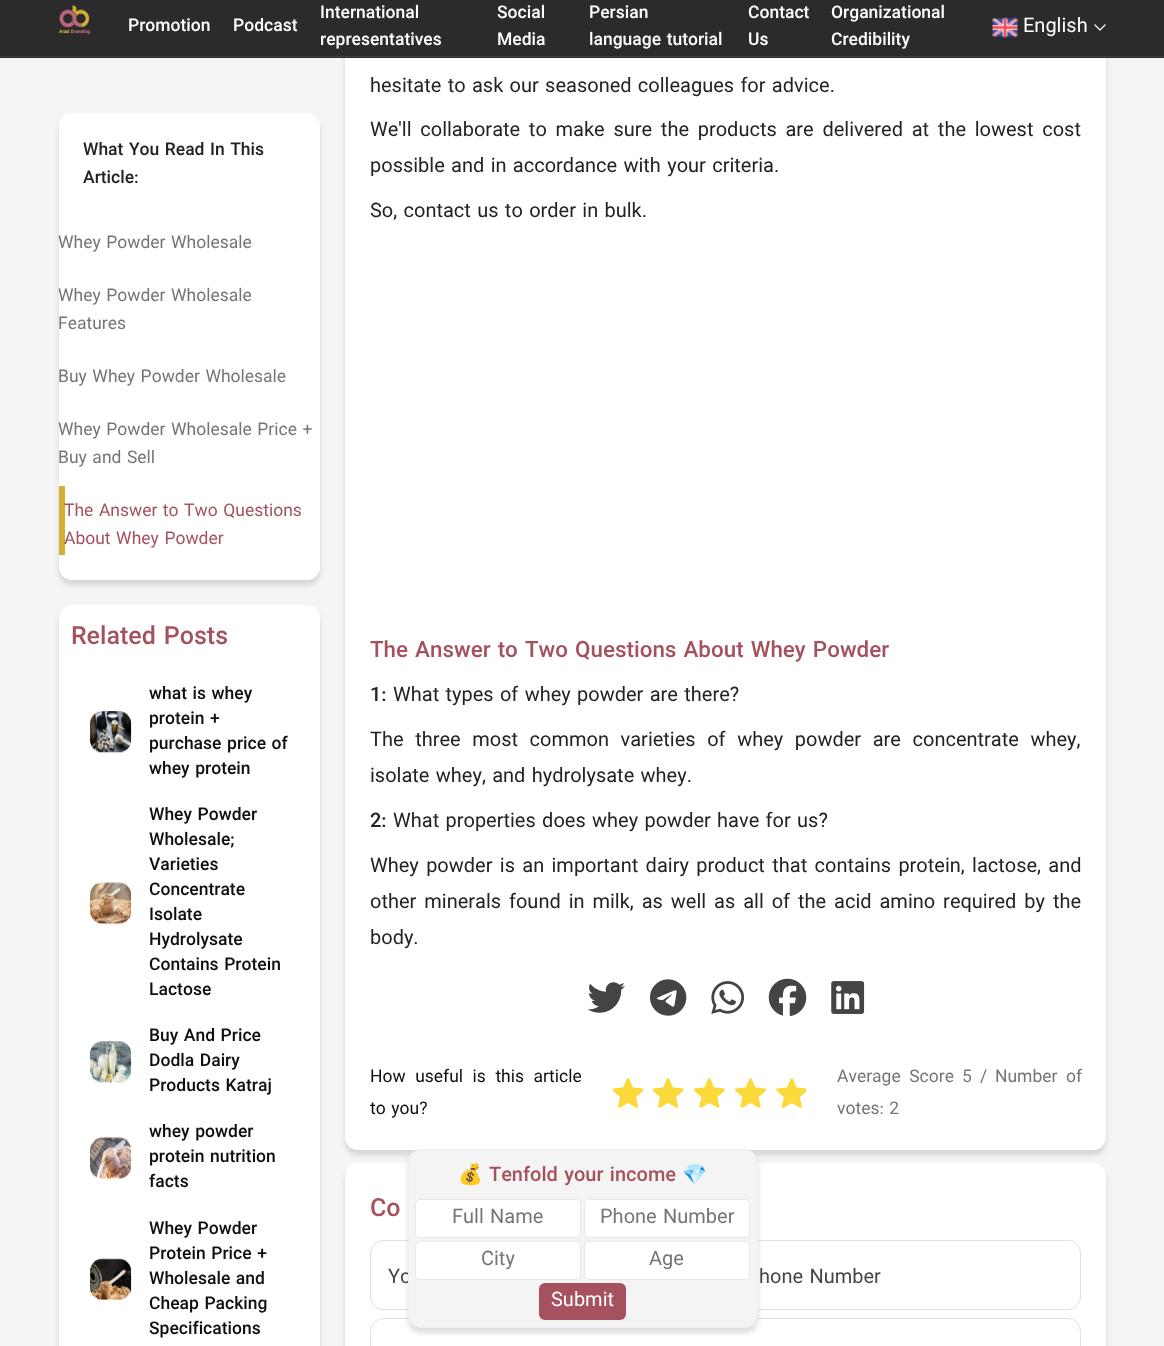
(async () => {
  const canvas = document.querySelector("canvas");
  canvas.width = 1164;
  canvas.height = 1346;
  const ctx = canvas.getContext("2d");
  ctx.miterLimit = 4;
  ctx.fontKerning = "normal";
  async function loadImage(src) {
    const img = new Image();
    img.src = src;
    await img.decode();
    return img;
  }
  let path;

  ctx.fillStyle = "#f5f5f5";
  ctx.fillRect(0, 0, 1164, 1346);
  ctx.fillStyle = "rgba(33, 33, 33, 0.15)";
  ctx.filter = "blur(2.5px)";
  ctx.beginPath();
  ctx.roundRect(345, -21, 761, 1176, 13);
  ctx.fill();
  ctx.filter = "none";
  ctx.fillStyle = "#ffffff";
  ctx.beginPath();
  ctx.roundRect(345, -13, 761, 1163, 13);
  ctx.fill();
  ctx.fillStyle = "#2b2b2b";
  ctx.fillRect(0, 0, 1164, 58);
  ctx.fillStyle = "#3f3f3f";
  ctx.fillRect(0, 56, 1164, 1);
  ctx.drawImage(await loadImage("img/1.png"), 59, 5, 31, 30);
  ctx.drawImage(await loadImage("img/2.png"), 992, 17, 26, 21);
  path = new Path2D("M1105 25L1100 30L1095 25");
  ctx.strokeStyle = "#ffffff";
  ctx.lineWidth = 1.2;
  ctx.lineCap = "round";
  ctx.lineJoin = "round";
  ctx.stroke(path);
  ctx.fillStyle = "rgba(33, 33, 33, 0.15)";
  ctx.filter = "blur(2.5px)";
  ctx.beginPath();
  ctx.roundRect(59, 118, 261, 467, 13);
  ctx.fill();
  ctx.filter = "none";
  ctx.fillStyle = "#ffffff";
  ctx.beginPath();
  ctx.roundRect(59, 113, 261, 467, 13);
  ctx.fill();
  ctx.fillStyle = "#d4af37";
  ctx.fillRect(59, 486, 6, 69);
  ctx.fillStyle = "rgba(33, 33, 33, 0.15)";
  ctx.filter = "blur(2.5px)";
  ctx.beginPath();
  ctx.roundRect(59, 610, 261, 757, 13);
  ctx.fill();
  ctx.filter = "none";
  ctx.fillStyle = "#ffffff";
  ctx.beginPath();
  ctx.roundRect(59, 605, 261, 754, 13);
  ctx.fill();
  ctx.drawImage(await loadImage("img/3.png"), 90, 711, 42, 42);
  ctx.drawImage(await loadImage("img/4.png"), 90, 882, 42, 43);
  ctx.drawImage(await loadImage("img/5.png"), 90, 1041, 42, 42);
  ctx.drawImage(await loadImage("img/6.png"), 90, 1137, 42, 43);
  ctx.drawImage(await loadImage("img/7.png"), 90, 1258, 42, 42);
  ctx.drawImage(await loadImage("img/8.png"), 587, 982, 38, 31);
  ctx.drawImage(await loadImage("img/9.png"), 650, 979, 37, 37);
  ctx.drawImage(await loadImage("img/10.png"), 711, 981, 34, 33);
  ctx.drawImage(await loadImage("img/11.png"), 768, 978, 39, 38);
  ctx.drawImage(await loadImage("img/12.png"), 831, 981, 34, 33);
  ctx.drawImage(await loadImage("img/13.png"), 613, 1078, 30, 30);
  ctx.drawImage(await loadImage("img/14.png"), 653, 1078, 31, 30);
  ctx.drawImage(await loadImage("img/15.png"), 694, 1078, 31, 30);
  ctx.drawImage(await loadImage("img/16.png"), 735, 1078, 31, 30);
  ctx.drawImage(await loadImage("img/17.png"), 776, 1078, 30, 30);
  ctx.fillStyle = "rgba(33, 33, 33, 0.15)";
  ctx.filter = "blur(2.5px)";
  ctx.beginPath();
  ctx.roundRect(345, 1168, 761, 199, 13);
  ctx.fill();
  ctx.filter = "none";
  ctx.fillStyle = "#ffffff";
  ctx.beginPath();
  ctx.roundRect(345, 1163, 761, 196, 13);
  ctx.fill();
  ctx.beginPath();
  ctx.roundRect(370.5, 1240.5, 352, 69, 12.5);
  ctx.strokeStyle = "#e0e0e0";
  ctx.lineWidth = 1;
  ctx.lineJoin = "miter";
  ctx.stroke();
  ctx.beginPath();
  ctx.roundRect(729.5, 1240.5, 351, 69, 12.5);
  ctx.stroke();
  ctx.beginPath();
  ctx.roundRect(370.5, 1318.5, 710, 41, 12.5);
  ctx.stroke();
  ctx.fillStyle = "rgba(33, 33, 33, 0.15)";
  ctx.filter = "blur(2.5px)";
  ctx.beginPath();
  ctx.roundRect(408, 1154, 350, 179, 13);
  ctx.fill();
  ctx.filter = "none";
  ctx.font = "bold 17.5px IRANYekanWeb";
  ctx.fillStyle = "#ffffff";
  for (const [text, x, y] of [
    ["Promotion", 128, 31],
    ["Podcast", 233, 31],
    ["International", 320, 18],
    ["representatives", 320, 45],
    ["Social", 497, 18],
    ["Media", 497, 45],
    ["Persian", 589, 18],
    ["language tutorial", 589, 45],
    ["Contact", 748, 18],
    ["Us", 748, 45],
    ["Organizational", 831, 18],
    ["Credibility", 831, 45],
  ]) {
    ctx.fillText(text, x, y);
  }
  ctx.font = "20px IRANYekanWeb";
  ctx.fillText("English", 1023, 32);
  ctx.font = "bold 17.5px IRANYekanWeb";
  ctx.fillStyle = "#232323";
  ctx.fillText("What You Read In This", 83, 155);
  ctx.fillText("Article:", 83, 183);
  ctx.font = "17.5px IRANYekanWeb";
  ctx.fillStyle = "#757575";
  for (const [text, x, y] of [
    ["Whey Powder Wholesale", 58, 248],
    ["Whey Powder Wholesale", 58, 301],
    ["Features", 58, 329],
    ["Buy Whey Powder Wholesale", 58, 382],
    ["Whey Powder Wholesale Price +", 58, 435],
    ["Buy and Sell", 58, 463],
  ]) {
    ctx.fillText(text, x, y);
  }
  ctx.fillStyle = "#a5525f";
  ctx.fillText("The Answer to Two Questions", 64, 516);
  ctx.fillText("About Whey Powder", 64, 544);
  ctx.font = "bold 25px IRANYekanWeb";
  ctx.fillText("Related Posts", 71, 644);
  ctx.font = "bold 17.5px IRANYekanWeb";
  ctx.fillStyle = "#0f0f0f";
  for (const [text, x, y] of [
    ["what is whey", 149, 699],
    ["protein +", 149, 724],
    ["purchase price of", 149, 749],
    ["whey protein", 149, 774],
    ["Whey Powder", 149, 820],
    ["Wholesale;", 149, 845],
    ["Varieties", 149, 870],
    ["Concentrate", 149, 895],
    ["Isolate", 149, 920],
    ["Hydrolysate", 149, 945],
    ["Contains Protein", 149, 970],
    ["Lactose", 149, 995],
    ["Buy And Price", 149, 1041],
    ["Dodla Dairy", 149, 1066],
    ["Products Katraj", 149, 1091],
    ["whey powder", 149, 1137],
    ["protein nutrition", 149, 1162],
    ["facts", 149, 1187],
    ["Whey Powder", 149, 1234],
    ["Protein Price +", 149, 1259],
    ["Wholesale and", 149, 1284],
    ["Cheap Packing", 149, 1309],
    ["Specifications", 149, 1334],
  ]) {
    ctx.fillText(text, x, y);
  }
  ctx.font = "20px IRANYekanWeb";
  ctx.fillStyle = "#232323";
  ctx.fillText("hesitate to ask our seasoned colleagues for advice.", 370, 92);
  ctx.wordSpacing = "2.4px";
  ctx.fillText("We'll collaborate to make sure the products are delivered at the lowest cost", 370, 136);
  ctx.wordSpacing = "0px";
  ctx.fillText("possible and in accordance with your criteria.", 370, 172);
  ctx.fillText("So, contact us to order in bulk.", 370, 217);
  ctx.font = "bold 22.4px IRANYekanWeb";
  ctx.fillStyle = "#a5525f";
  ctx.fillText("The Answer to Two Questions About Whey Powder", 370, 657);
  ctx.font = "bold 20px IRANYekanWeb";
  ctx.fillStyle = "#232323";
  ctx.fillText("1:", 370, 701);
  ctx.font = "20px IRANYekanWeb";
  ctx.fillText("What types of whey powder are there?", 393, 701);
  ctx.wordSpacing = "5.25px";
  ctx.fillText("The three most common varieties of whey powder are concentrate whey,", 370, 746);
  ctx.wordSpacing = "0px";
  ctx.fillText("isolate whey, and hydrolysate whey.", 370, 782);
  ctx.font = "bold 20px IRANYekanWeb";
  ctx.fillText("2:", 370, 827);
  ctx.font = "20px IRANYekanWeb";
  ctx.fillText("What properties does whey powder have for us?", 393, 827);
  ctx.wordSpacing = "1px";
  ctx.fillText("Whey powder is an important dairy product that contains protein, lactose, and", 370, 872);
  ctx.wordSpacing = "1.6px";
  ctx.fillText("other minerals found in milk, as well as all of the acid amino required by the", 370, 908);
  ctx.wordSpacing = "0px";
  ctx.fillText("body.", 370, 944);
  ctx.wordSpacing = "4px";
  ctx.font = "17.5px IRANYekanWeb";
  ctx.fillStyle = "#0f0f0f";
  ctx.fillText("How useful is this article", 370, 1082);
  ctx.wordSpacing = "0px";
  ctx.fillText("to you?", 370, 1114);
  ctx.wordSpacing = "3px";
  ctx.fillStyle = "#757575";
  ctx.fillText("Average Score", 837, 1082);
  ctx.wordSpacing = "0px";
  ctx.fillText("5", 962, 1082);
  ctx.fillText("/", 980, 1082);
  ctx.wordSpacing = "3px";
  ctx.fillText("Number of", 995, 1082);
  ctx.wordSpacing = "0px";
  ctx.fillText("votes: 2", 837, 1114);
  ctx.font = "bold 25px IRANYekanWeb";
  ctx.fillStyle = "#a5525f";
  ctx.fillText("Co", 370, 1216);
  ctx.font = "20px IRANYekanWeb";
  ctx.fillStyle = "#454545";
  ctx.fillText("Yo", 388, 1283);
  ctx.fillText("hone Number", 759, 1283);
  ctx.fillStyle = "#f4f4f4";
  ctx.beginPath();
  ctx.roundRect(408.5, 1149.5, 349, 178, 12.5);
  ctx.fill();
  ctx.strokeStyle = "#eeeeee";
  ctx.stroke();
  ctx.font = "bold 20px Noto Color Emoji";
  ctx.fillStyle = "#a5525f";
  ctx.fillText("💰", 458, 1181);
  ctx.font = "bold 20px IRANYekanWeb";
  ctx.fillText("Tenfold your income", 489, 1181);
  ctx.font = "bold 20px Noto Color Emoji";
  ctx.fillText("💎", 682, 1181);
  ctx.fillStyle = "#ffffff";
  ctx.beginPath();
  ctx.roundRect(415.5, 1199.5, 165, 38, 4.5);
  ctx.fill();
  ctx.strokeStyle = "#e5e7eb";
  ctx.stroke();
  ctx.font = "20px IRANYekanWeb";
  ctx.fillStyle = "#757575";
  ctx.fillText("Full Name", 452, 1223);
  ctx.fillStyle = "#ffffff";
  ctx.beginPath();
  ctx.roundRect(584.5, 1199.5, 165, 38, 4.5);
  ctx.fill();
  ctx.stroke();
  ctx.fillStyle = "#757575";
  ctx.fillText("Phone Number", 600, 1223);
  ctx.fillStyle = "#ffffff";
  ctx.beginPath();
  ctx.roundRect(415.5, 1241.5, 165, 38, 4.5);
  ctx.fill();
  ctx.stroke();
  ctx.fillStyle = "#757575";
  ctx.fillText("City", 481, 1265);
  ctx.fillStyle = "#ffffff";
  ctx.beginPath();
  ctx.roundRect(584.5, 1241.5, 165, 38, 4.5);
  ctx.fill();
  ctx.stroke();
  ctx.fillStyle = "#757575";
  ctx.fillText("Age", 649, 1265);
  ctx.fillStyle = "#a5515f";
  ctx.beginPath();
  ctx.roundRect(539, 1283, 87, 37, 6);
  ctx.fill();
  ctx.fillStyle = "#ffffff";
  ctx.fillText("Submit", 551, 1306);
})();
